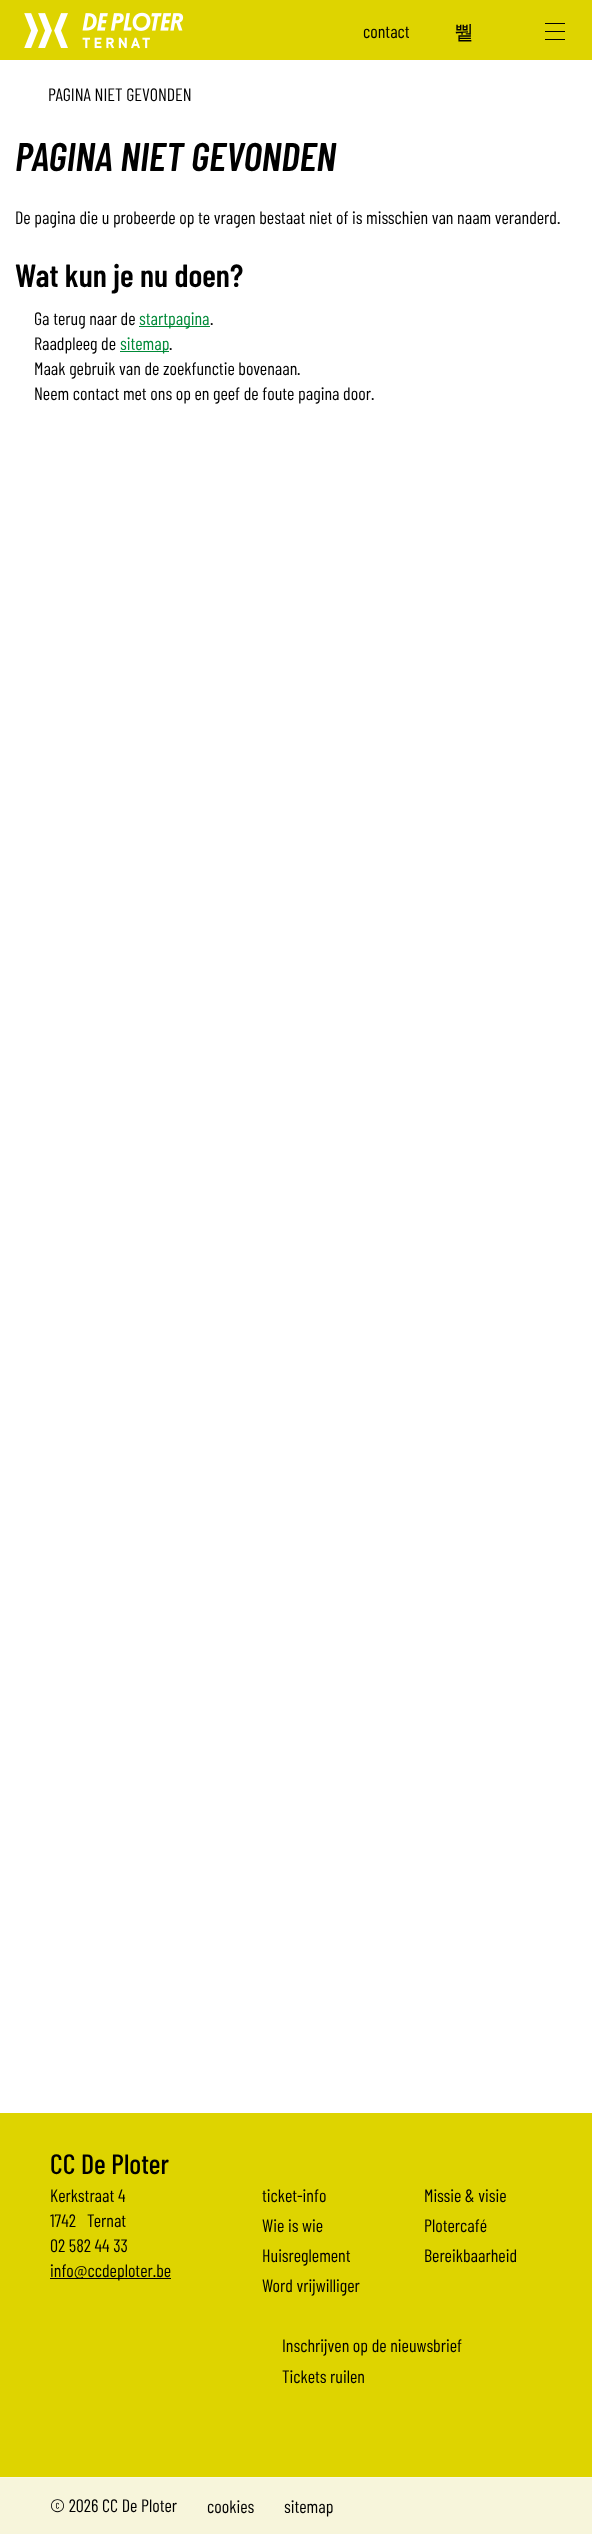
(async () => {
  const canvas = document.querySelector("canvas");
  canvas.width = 592;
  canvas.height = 2534;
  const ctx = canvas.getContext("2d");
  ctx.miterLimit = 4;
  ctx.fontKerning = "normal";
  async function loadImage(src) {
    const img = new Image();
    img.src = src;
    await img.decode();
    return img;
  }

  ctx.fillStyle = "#ffffff";
  ctx.fillRect(0, 0, 592, 2534);
  ctx.fillStyle = "#ded400";
  ctx.fillRect(0, 0, 592, 60);
  ctx.drawImage(await loadImage("img/1.png"), 24, 12, 160, 37);
  for (const [x, y, w, h, color] of [
    [545, 31, 20, 1, "#000000"],
    [545, 23, 20, 1, "#000000"],
    [545, 39, 20, 1, "#000000"],
    [139, 326, 71, 1, "#008a38"],
    [120, 351, 49, 1, "#008a38"],
    [0, 2113, 592, 364, "#ded400"],
    [50, 2278, 121, 1, "#000000"],
    [0, 2478, 592, 56, "#f7f5db"],
    [0, 2477, 592, 1, "#f9f8e6"],
  ]) {
    ctx.fillStyle = color;
    ctx.fillRect(x, y, w, h);
  }
  ctx.font = "18px Barlow Condensed";
  ctx.fillStyle = "#000000";
  ctx.fillText("contact", 363, 38);
  ctx.letterSpacing = "1px";
  ctx.font = "500 20px WenQuanYi Zen Hei";
  ctx.fillText("쀁", 454, 39);
  ctx.letterSpacing = "0px";
  ctx.font = "18px Barlow Condensed";
  ctx.fillText("PAGINA NIET GEVONDEN", 48, 101);
  ctx.font = "italic 600 40px Barlow Condensed";
  ctx.fillText("PAGINA NIET GEVONDEN", 15, 171);
  ctx.font = "18px Barlow Condensed";
  ctx.fillText("De pagina die u probeerde op te vragen bestaat niet of is misschien van naam veranderd.", 15, 224);
  ctx.font = "600 32px Barlow Condensed";
  ctx.fillText("Wat kun je nu doen?", 15, 287);
  ctx.font = "18px Barlow Condensed";
  ctx.fillText("Ga terug naar de", 34, 325);
  ctx.fillStyle = "#008a38";
  ctx.fillText("startpagina", 139, 325);
  ctx.fillStyle = "#000000";
  ctx.fillText(".", 210, 325);
  ctx.fillText("Raadpleeg de", 34, 350);
  ctx.fillStyle = "#008a38";
  ctx.fillText("sitemap", 120, 350);
  ctx.fillStyle = "#000000";
  for (const [text, x, y] of [
    [".", 169, 350],
    ["Maak gebruik van de zoekfunctie bovenaan.", 34, 375],
    ["Neem contact met ons op en geef de foute pagina door.", 34, 400],
  ]) {
    ctx.fillText(text, x, y);
  }
  ctx.font = "500 28px Barlow Condensed";
  ctx.fillText("CC De Ploter", 50, 2174);
  ctx.font = "18px Barlow Condensed";
  for (const [text, x, y] of [
    ["Kerkstraat 4", 50, 2202],
    ["1742", 50, 2227],
    ["Ternat", 87, 2227],
    ["02 582 44 33", 50, 2252],
    ["info@ccdeploter.be", 50, 2277],
    ["ticket-info", 262, 2202],
    ["Missie & visie", 424, 2202],
    ["Wie is wie", 262, 2232],
    ["Plotercafé", 424, 2232],
    ["Huisreglement", 262, 2262],
    ["Bereikbaarheid", 424, 2262],
    ["Word vrijwilliger", 262, 2292],
    ["Inschrijven op de nieuwsbrief", 282, 2352],
    ["Tickets ruilen", 282, 2383],
    ["© 2026 CC De Ploter", 50, 2512],
    ["cookies", 207, 2513],
    ["sitemap", 284, 2513],
  ]) {
    ctx.fillText(text, x, y);
  }
})();
